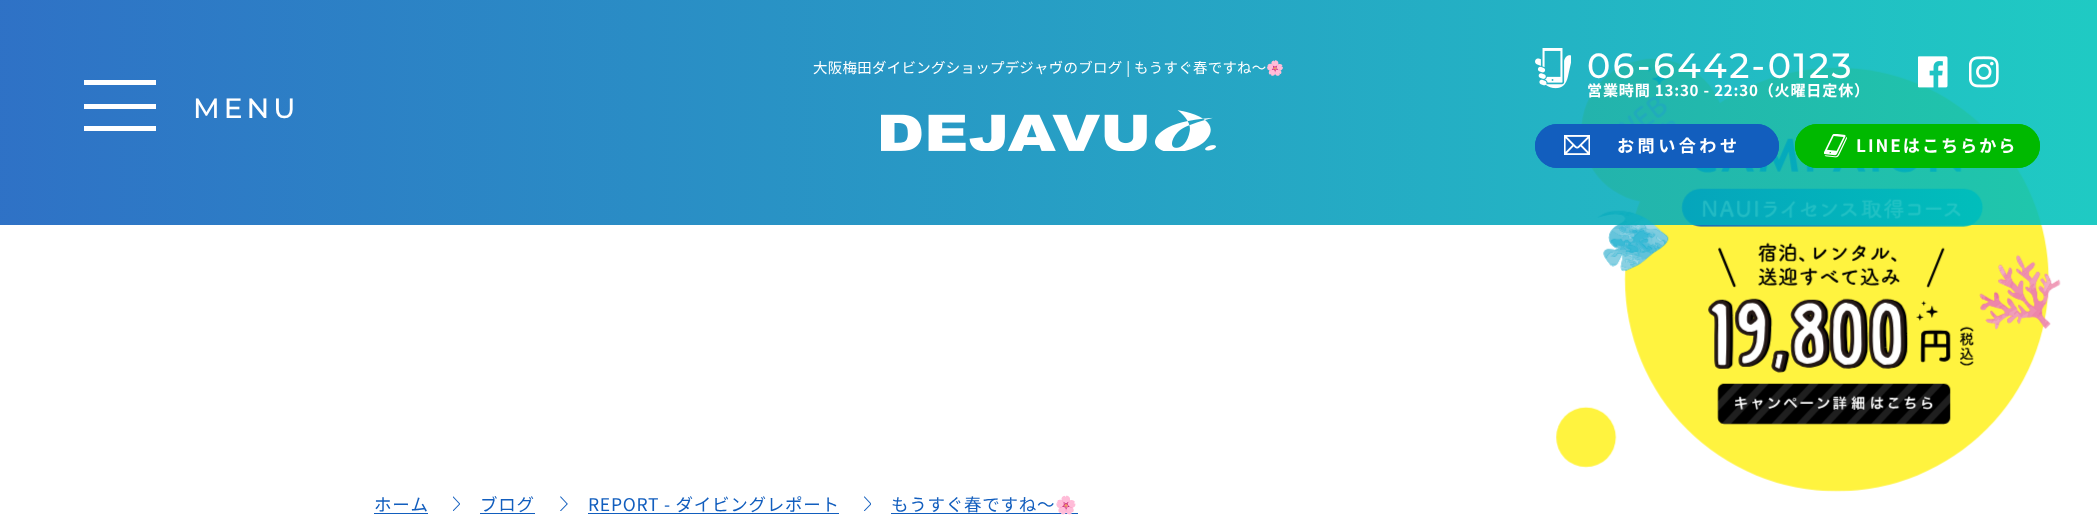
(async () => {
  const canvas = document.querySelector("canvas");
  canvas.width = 2097;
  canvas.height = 528;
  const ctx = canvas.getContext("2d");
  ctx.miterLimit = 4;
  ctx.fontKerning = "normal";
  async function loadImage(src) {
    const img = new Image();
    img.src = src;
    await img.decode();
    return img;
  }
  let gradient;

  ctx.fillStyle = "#ffffff";
  ctx.fillRect(0, 0, 2097, 528);
  ctx.drawImage(await loadImage("img/7.png"), 1556, 58, 505, 434);
  gradient = ctx.createLinearGradient(0, 113, 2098, 112);
  gradient.addColorStop(0, "rgba(18, 94, 190, 0.88)");
  gradient.addColorStop(1, "rgba(0, 195, 187, 0.88)");
  ctx.fillStyle = gradient;
  ctx.fillRect(0, 0, 2097, 225);
  ctx.drawImage(await loadImage("img/1.png"), 881, 110, 335, 41);
  ctx.drawImage(await loadImage("img/2.png"), 1535, 48, 36, 41);
  ctx.drawImage(await loadImage("img/3.png"), 1918, 56, 30, 32);
  ctx.drawImage(await loadImage("img/4.png"), 1969, 56, 30, 32);
  ctx.fillStyle = "#125ebe";
  ctx.beginPath();
  ctx.roundRect(1535, 124, 244, 44, 22);
  ctx.fill();
  ctx.drawImage(await loadImage("img/5.png"), 1564, 135, 26, 20);
  ctx.beginPath();
  ctx.roundRect(1535.5, 124.5, 243, 43, 21.5);
  ctx.strokeStyle = "#125ebe";
  ctx.stroke();
  ctx.fillStyle = "#00b900";
  ctx.beginPath();
  ctx.roundRect(1795, 124, 245, 44, 22);
  ctx.fill();
  ctx.drawImage(await loadImage("img/6.png"), 1824, 134, 23, 24);
  ctx.beginPath();
  ctx.roundRect(1795.5, 124.5, 244, 43, 21.5);
  ctx.strokeStyle = "#00b900";
  ctx.stroke();
  for (const [x, y, w, h, color] of [
    [84, 104, 72, 5, "#ffffff"],
    [84, 80, 72, 5, "#ffffff"],
    [84, 126, 72, 5, "#ffffff"],
    [374, 513, 54, 1, "#125ebe"],
  ]) {
    ctx.fillStyle = color;
    ctx.fillRect(x, y, w, h);
  }
  ctx.drawImage(await loadImage("img/8.png"), 453, 496, 7, 15);
  ctx.fillRect(480, 513, 55, 1);
  ctx.drawImage(await loadImage("img/9.png"), 560, 496, 8, 15);
  ctx.fillRect(588, 513, 251, 1);
  ctx.drawImage(await loadImage("img/10.png"), 864, 496, 7, 15);
  ctx.fillRect(891, 513, 187, 1);
  ctx.letterSpacing = "0.35px";
  ctx.font = "14.4px Noto Sans JP";
  ctx.fillStyle = "#ffffff";
  ctx.fillText("大阪梅田ダイビングショップデジャヴのブログ | もうすぐ春ですね〜", 813, 73);
  ctx.font = "14.4px Noto Color Emoji";
  ctx.fillText("🌸", 1266, 73);
  ctx.letterSpacing = "2.5px";
  ctx.font = "100 35px Montserrat";
  ctx.fillText("06-6442-0123", 1587, 78);
  ctx.letterSpacing = "0.8px";
  ctx.font = "bold 15.1px Noto Sans JP";
  ctx.fillText("営業時間 13:30 - 22:30（火曜日定休）", 1587, 96);
  ctx.letterSpacing = "3.5px";
  ctx.font = "bold 17.1px Noto Sans JP";
  ctx.fillText("お問い合わせ", 1617, 152);
  ctx.letterSpacing = "2px";
  ctx.fillText("LINEはこちらから", 1856, 152);
  ctx.letterSpacing = "4px";
  ctx.font = "100 28px Montserrat";
  ctx.fillText("MENU", 193, 118);
  ctx.letterSpacing = "0.75px";
  ctx.font = "17.5px Noto Sans JP";
  ctx.fillStyle = "#125ebe";
  for (const [text, x, y] of [
    ["ホーム", 374, 511],
    ["ブログ", 480, 511],
    ["REPORT - ダイビングレポート", 588, 511],
    ["もうすぐ春ですね〜", 891, 511],
  ]) {
    ctx.fillText(text, x, y);
  }
  ctx.font = "17.5px Noto Color Emoji";
  ctx.fillText("🌸", 1055, 511);
})();
